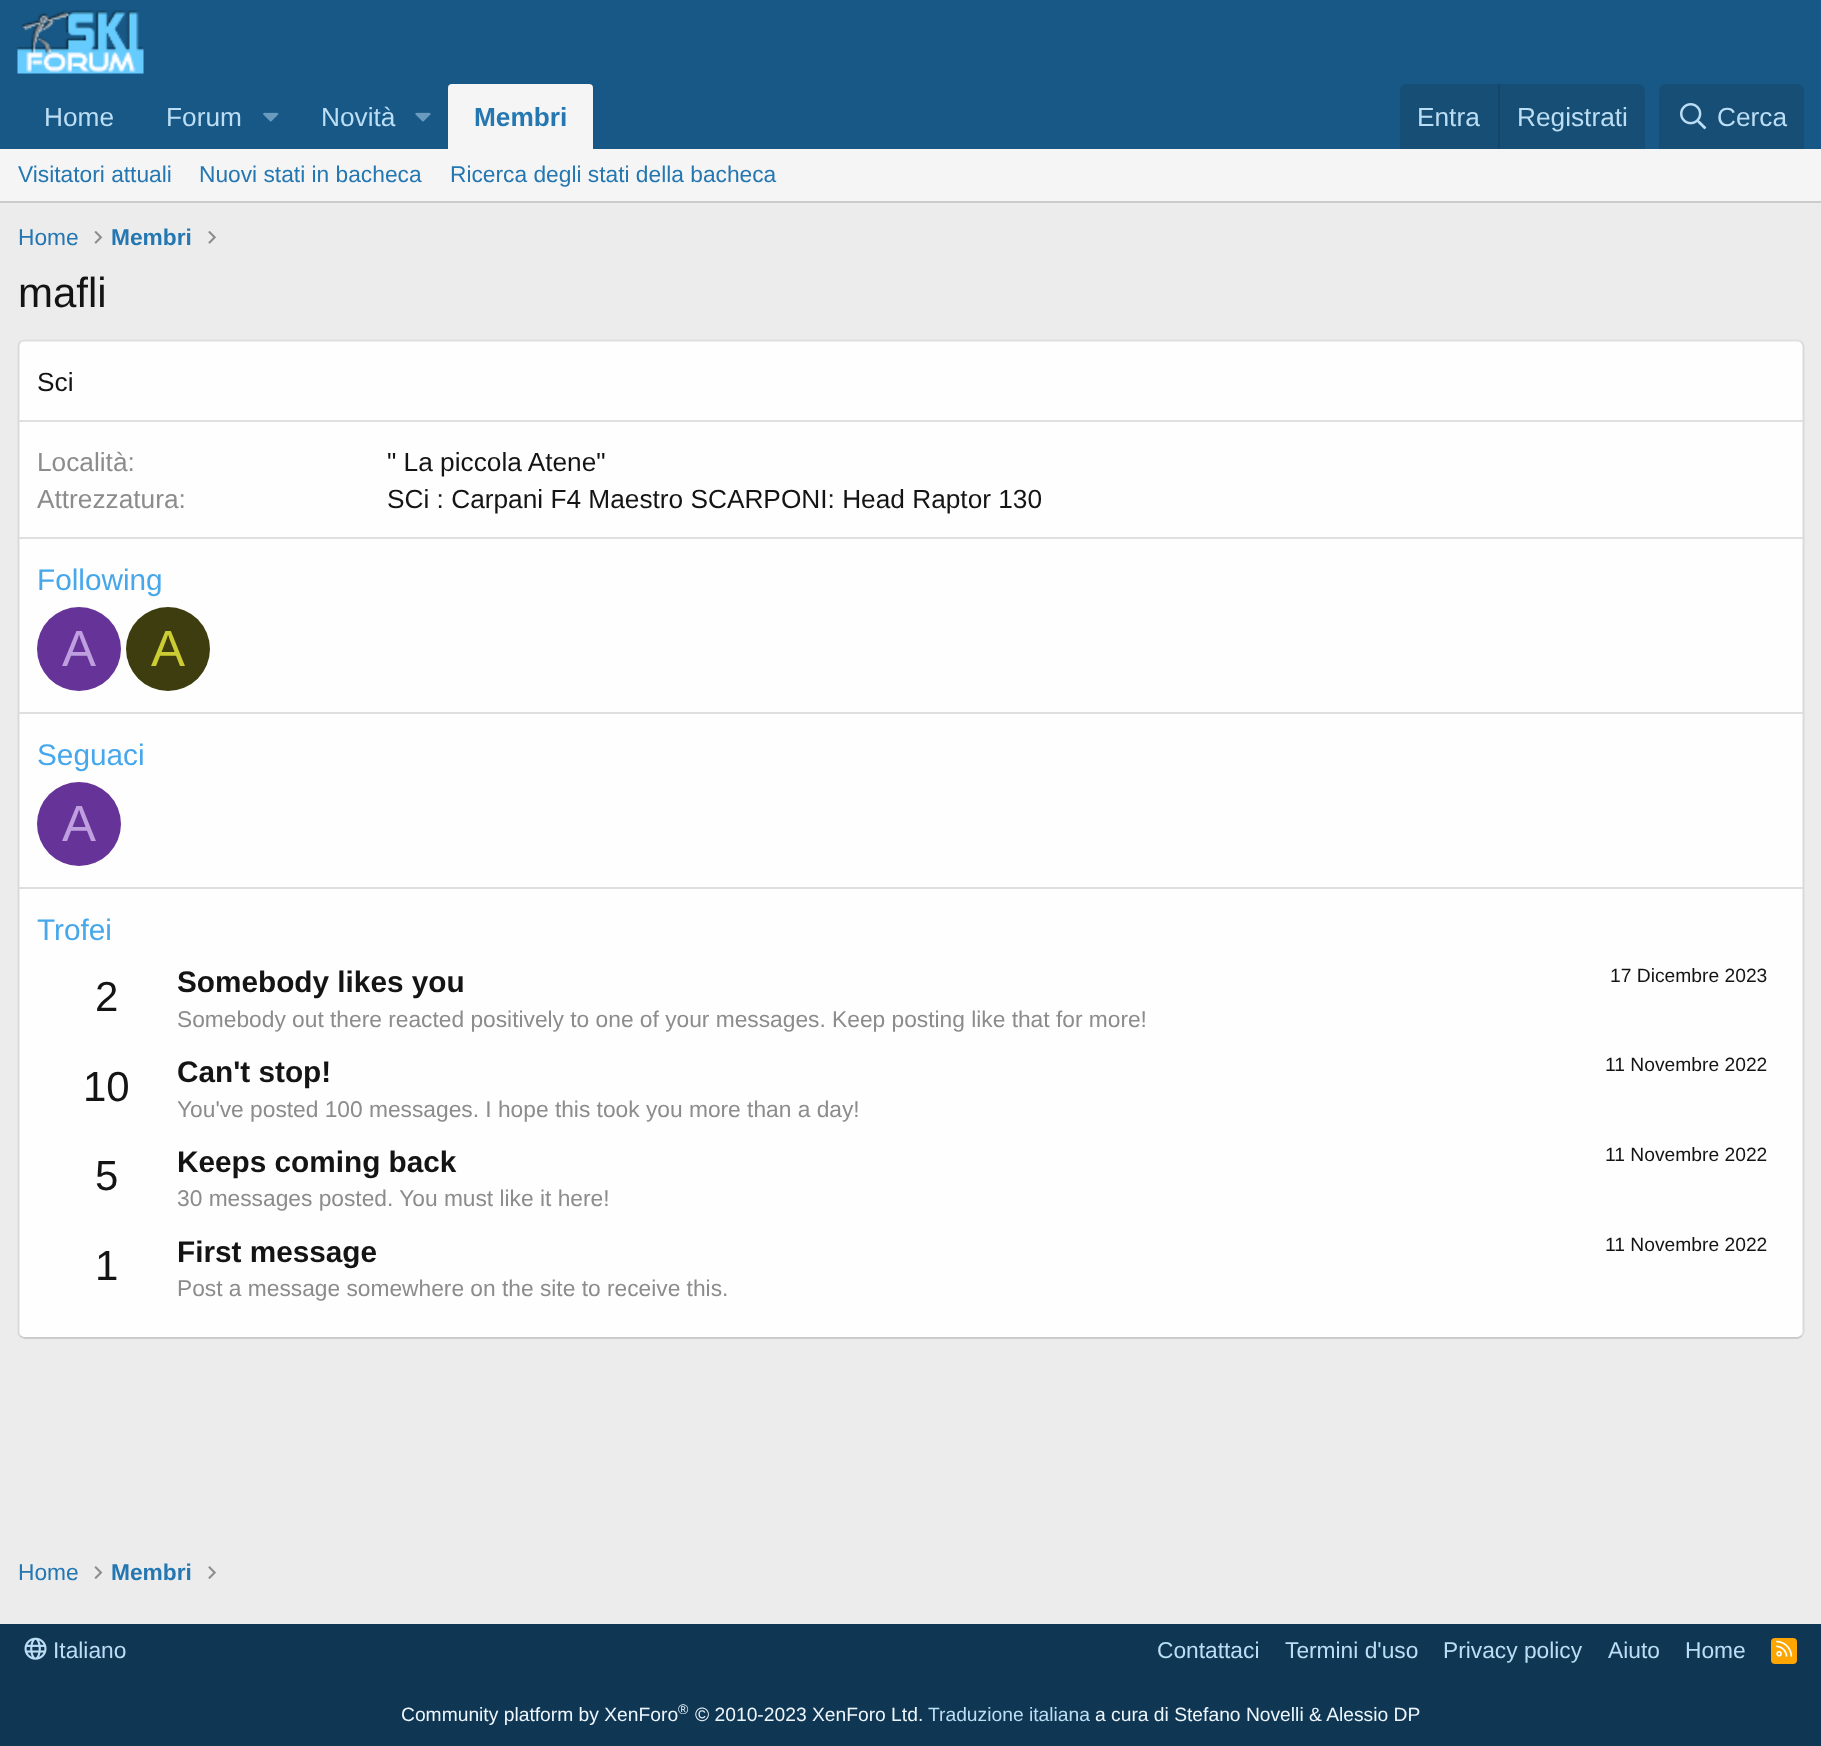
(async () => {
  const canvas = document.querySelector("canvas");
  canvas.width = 1821;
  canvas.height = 1746;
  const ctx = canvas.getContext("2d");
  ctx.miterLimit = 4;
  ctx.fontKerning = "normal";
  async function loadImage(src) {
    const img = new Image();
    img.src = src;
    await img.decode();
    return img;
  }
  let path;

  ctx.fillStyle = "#ececec";
  ctx.fillRect(0, 0, 1821, 1746);
  ctx.fillStyle = "#185886";
  ctx.fillRect(0, 0, 1821, 149);
  ctx.drawImage(await loadImage("img/1.png"), 17, 10, 127, 64);
  ctx.drawImage(await loadImage("img/2.png"), 263, 112, 16, 10);
  ctx.drawImage(await loadImage("img/3.png"), 415, 112, 16, 10);
  ctx.fillStyle = "#f5f5f5";
  ctx.beginPath();
  ctx.roundRect(448, 84, 145, 65, [4, 4, 0, 0]);
  ctx.fill();
  ctx.fillStyle = "#174e75";
  ctx.beginPath();
  ctx.roundRect(1400, 84, 245, 65, [7, 7, 0, 0]);
  ctx.fill();
  ctx.fillStyle = "#174566";
  ctx.fillRect(1498, 84, 2, 65);
  ctx.fillStyle = "#174e75";
  ctx.beginPath();
  ctx.roundRect(1659, 84, 145, 65, [7, 7, 0, 0]);
  ctx.fill();
  ctx.drawImage(await loadImage("img/4.png"), 1680, 103, 27, 27);
  ctx.fillStyle = "#f5f5f5";
  ctx.fillRect(0, 149, 1821, 52);
  ctx.fillStyle = "#cbcbcb";
  ctx.fillRect(0, 201, 1821, 2);
  ctx.drawImage(await loadImage("img/5.png"), 94, 231, 9, 13);
  ctx.drawImage(await loadImage("img/6.png"), 208, 231, 8, 13);
  ctx.fillStyle = "#fefefe";
  ctx.beginPath();
  ctx.roundRect(18, 340, 1786, 999, 7);
  ctx.fill();
  path = new Path2D("M20 342C21.5 341 23 340.5 24.5 340.5H1797C1799 340.5 1800.5 341 1801.5 342");
  ctx.strokeStyle = "#dfdfdf";
  ctx.lineWidth = 1.8;
  ctx.stroke(path);
  path = new Path2D("M1801.5 342C1802.5 343.5 1803.5 345 1803.5 346.5V1332C1803.5 1333.5 1802.5 1335 1801.5 1336");
  ctx.strokeStyle = "#d8d8d8";
  ctx.stroke(path);
  path = new Path2D("M1801.5 1336C1800.5 1337 1799 1338 1797 1338H24.5C23 1338 21.5 1337 20 1336");
  ctx.strokeStyle = "#cbcbcb";
  ctx.stroke(path);
  path = new Path2D("M20 1336C19 1335 18.5 1333.5 18.5 1332V346.5C18.5 345 19 343.5 20 342");
  ctx.strokeStyle = "#d8d8d8";
  ctx.stroke(path);
  ctx.fillStyle = "#dfdfdf";
  ctx.fillRect(19, 420, 1784, 2);
  ctx.fillRect(19, 537, 1784, 2);
  ctx.fillStyle = "#663399";
  ctx.beginPath();
  ctx.arc(79, 649, 42, 0, Math.PI * 2);
  ctx.fill();
  ctx.fillStyle = "#3d3d0f";
  ctx.beginPath();
  ctx.arc(168, 649, 42, 0, Math.PI * 2);
  ctx.fill();
  ctx.fillStyle = "#dfdfdf";
  ctx.fillRect(19, 712, 1784, 2);
  ctx.fillStyle = "#663399";
  ctx.beginPath();
  ctx.arc(79, 824, 42, 0, Math.PI * 2);
  ctx.fill();
  ctx.fillStyle = "#dfdfdf";
  ctx.fillRect(19, 887, 1784, 2);
  ctx.drawImage(await loadImage("img/7.png"), 94, 1566, 9, 13);
  ctx.drawImage(await loadImage("img/8.png"), 208, 1566, 8, 13);
  ctx.fillStyle = "#0f3652";
  ctx.fillRect(0, 1624, 1821, 122);
  ctx.drawImage(await loadImage("img/9.png"), 24, 1637, 23, 23);
  ctx.fillStyle = "#ffa500";
  ctx.beginPath();
  ctx.roundRect(1771, 1638, 26, 26, 4);
  ctx.fill();
  ctx.drawImage(await loadImage("img/10.png"), 1776, 1640, 17, 17);
  ctx.font = "26.25px Liberation Sans";
  ctx.fillStyle = "#bcdef5";
  for (const [text, x, y] of [
    ["Home", 44, 126],
    ["Forum", 166, 126],
    ["Novità", 321, 126],
  ]) {
    ctx.fillText(text, x, y);
  }
  ctx.font = "bold 26.25px Liberation Sans";
  ctx.fillStyle = "#2577b1";
  ctx.fillText("Membri", 474, 126);
  ctx.font = "26.25px Liberation Sans";
  ctx.fillStyle = "#bcdef5";
  for (const [text, x, y] of [
    ["Entra", 1417, 126],
    ["Registrati", 1517, 126],
    ["Cerca", 1717, 126],
  ]) {
    ctx.fillText(text, x, y);
  }
  ctx.font = "22.75px Liberation Sans";
  ctx.fillStyle = "#2577b1";
  for (const [text, x, y] of [
    ["Visitatori attuali", 18, 182],
    ["Nuovi stati in bacheca", 199, 182],
    ["Ricerca degli stati della bacheca", 450, 182],
    ["Home", 18, 245],
  ]) {
    ctx.fillText(text, x, y);
  }
  ctx.font = "bold 22.75px Liberation Sans";
  ctx.fillText("Membri", 111, 245);
  ctx.font = "42px Liberation Sans";
  ctx.fillStyle = "#141414";
  ctx.fillText("mafli", 18, 307);
  ctx.font = "26.25px Liberation Sans";
  ctx.fillText("Sci", 37, 391);
  ctx.fillStyle = "#8c8c8c";
  ctx.fillText("Località:", 37, 471);
  ctx.fillStyle = "#141414";
  ctx.fillText("\" La piccola Atene\"", 387, 471);
  ctx.fillStyle = "#8c8c8c";
  ctx.fillText("Attrezzatura:", 37, 508);
  ctx.fillStyle = "#141414";
  ctx.fillText("SCi : Carpani F4 Maestro SCARPONI: Head Raptor 130", 387, 508);
  ctx.font = "29.75px Liberation Sans";
  ctx.fillStyle = "#47a7eb";
  ctx.fillText("Following", 37, 590);
  ctx.font = "51px Liberation Sans";
  ctx.fillStyle = "#bf9fdf";
  ctx.fillText("A", 62, 666);
  ctx.fillStyle = "#cccc33";
  ctx.fillText("A", 151, 666);
  ctx.font = "29.75px Liberation Sans";
  ctx.fillStyle = "#47a7eb";
  ctx.fillText("Seguaci", 37, 765);
  ctx.font = "51px Liberation Sans";
  ctx.fillStyle = "#bf9fdf";
  ctx.fillText("A", 62, 841);
  ctx.font = "29.75px Liberation Sans";
  ctx.fillStyle = "#47a7eb";
  ctx.fillText("Trofei", 37, 940);
  ctx.font = "42px Liberation Sans";
  ctx.fillStyle = "#141414";
  ctx.fillText("2", 95, 1011);
  ctx.font = "bold 29.75px Liberation Sans";
  ctx.fillText("Somebody likes you", 177, 992);
  ctx.font = "19.25px Liberation Sans";
  ctx.fillText("17 Dicembre 2023", 1610, 982);
  ctx.font = "22.75px Liberation Sans";
  ctx.fillStyle = "#8c8c8c";
  ctx.fillText("Somebody out there reacted positively to one of your messages. Keep posting like that for more!", 177, 1027);
  ctx.font = "42px Liberation Sans";
  ctx.fillStyle = "#141414";
  ctx.fillText("10", 83, 1101);
  ctx.font = "bold 29.75px Liberation Sans";
  ctx.fillText("Can't stop!", 177, 1082);
  ctx.font = "19.25px Liberation Sans";
  ctx.fillText("11 Novembre 2022", 1605, 1071);
  ctx.font = "22.75px Liberation Sans";
  ctx.fillStyle = "#8c8c8c";
  ctx.fillText("You've posted 100 messages. I hope this took you more than a day!", 177, 1117);
  ctx.font = "42px Liberation Sans";
  ctx.fillStyle = "#141414";
  ctx.fillText("5", 95, 1190);
  ctx.font = "bold 29.75px Liberation Sans";
  ctx.fillText("Keeps coming back", 177, 1172);
  ctx.font = "19.25px Liberation Sans";
  ctx.fillText("11 Novembre 2022", 1605, 1161);
  ctx.font = "22.75px Liberation Sans";
  ctx.fillStyle = "#8c8c8c";
  ctx.fillText("30 messages posted. You must like it here!", 177, 1206);
  ctx.font = "42px Liberation Sans";
  ctx.fillStyle = "#141414";
  ctx.fillText("1", 95, 1280);
  ctx.font = "bold 29.75px Liberation Sans";
  ctx.fillText("First message", 177, 1262);
  ctx.font = "19.25px Liberation Sans";
  ctx.fillText("11 Novembre 2022", 1605, 1251);
  ctx.font = "22.75px Liberation Sans";
  ctx.fillStyle = "#8c8c8c";
  ctx.fillText("Post a message somewhere on the site to receive this.", 177, 1296);
  ctx.fillStyle = "#2577b1";
  ctx.fillText("Home", 18, 1580);
  ctx.font = "bold 22.75px Liberation Sans";
  ctx.fillText("Membri", 111, 1580);
  ctx.font = "22.75px Liberation Sans";
  ctx.fillStyle = "#bcdef5";
  for (const [text, x, y] of [
    ["Italiano", 53, 1658],
    ["Contattaci", 1157, 1658],
    ["Termini d'uso", 1285, 1658],
    ["Privacy policy", 1443, 1658],
    ["Aiuto", 1608, 1658],
    ["Home", 1685, 1658],
  ]) {
    ctx.fillText(text, x, y);
  }
  ctx.font = "19.25px Liberation Sans";
  ctx.fillStyle = "#edf6fd";
  ctx.fillText("Community platform by XenForo", 401, 1721);
  ctx.font = "14px Liberation Sans";
  ctx.fillText("®", 678, 1714);
  ctx.font = "19.25px Liberation Sans";
  ctx.fillText("© 2010-2023 XenForo Ltd.", 695, 1721);
  ctx.fillStyle = "#bcdef5";
  ctx.fillText("Traduzione italiana", 928, 1721);
  ctx.fillStyle = "#edf6fd";
  ctx.fillText("a cura di Stefano Novelli & Alessio DP", 1095, 1721);
})();
